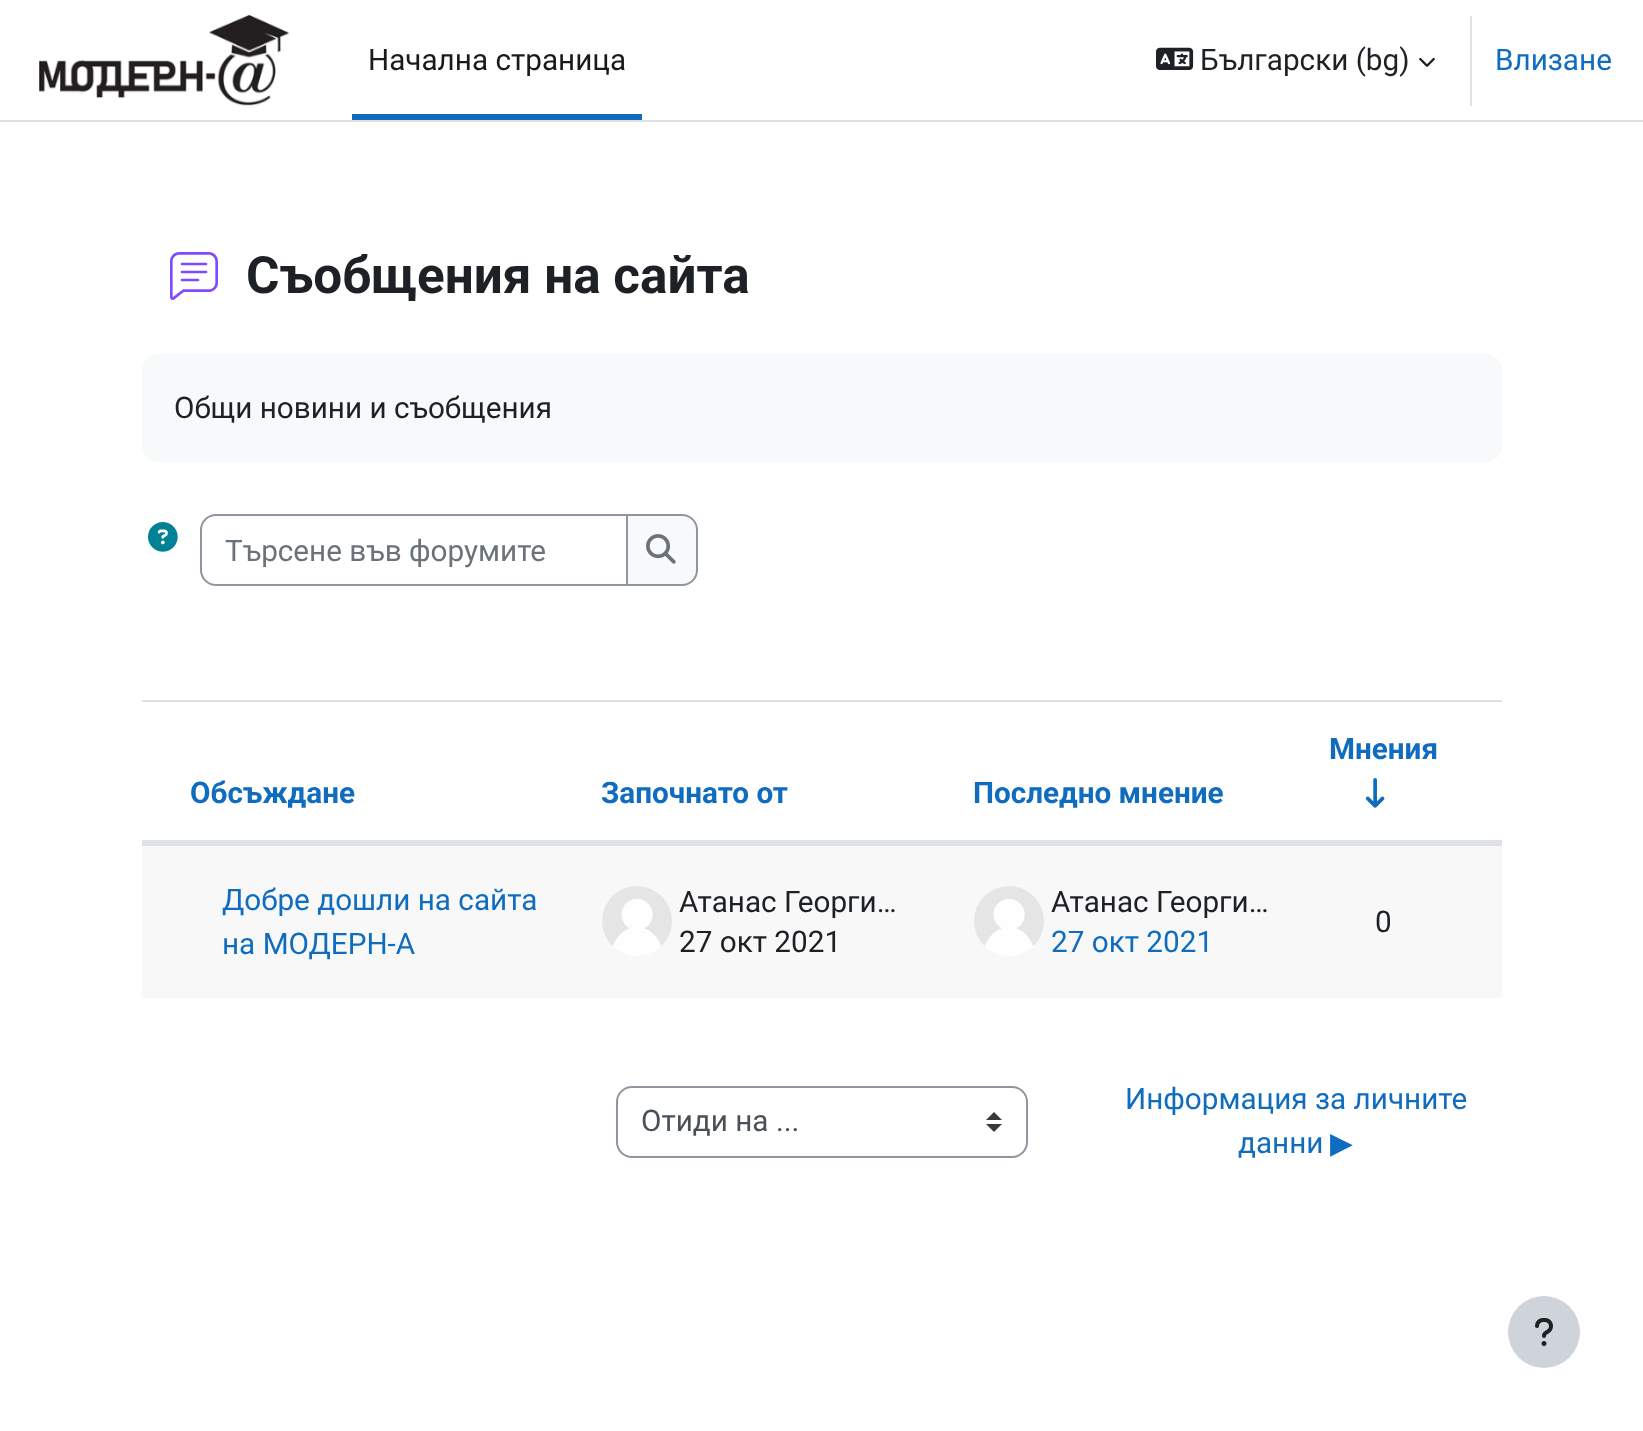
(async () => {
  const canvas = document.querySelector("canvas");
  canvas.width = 1643;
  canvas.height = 1431;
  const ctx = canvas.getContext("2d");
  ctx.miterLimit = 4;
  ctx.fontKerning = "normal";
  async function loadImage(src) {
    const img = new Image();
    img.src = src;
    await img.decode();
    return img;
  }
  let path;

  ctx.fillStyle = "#ffffff";
  ctx.fillRect(0, 0, 1643, 1431);
  ctx.fillStyle = "#dee2e6";
  ctx.fillRect(0, 120, 1643, 2);
  ctx.drawImage(await loadImage("img/1.png"), 39, 14, 250, 92);
  ctx.fillStyle = "#0f6cbf";
  ctx.fillRect(352, 114, 290, 6);
  ctx.drawImage(await loadImage("img/2.png"), 1156, 47, 38, 23);
  ctx.drawImage(await loadImage("img/3.png"), 1419, 57, 16, 10);
  ctx.fillStyle = "#dee2e6";
  ctx.fillRect(1470, 16, 2, 90);
  ctx.drawImage(await loadImage("img/4.png"), 170, 252, 48, 48);
  ctx.fillStyle = "#f8f9fa";
  ctx.beginPath();
  ctx.roundRect(142, 354, 1360, 108, 16);
  ctx.fill();
  ctx.drawImage(await loadImage("img/5.png"), 148, 522, 30, 30);
  ctx.beginPath();
  ctx.roundRect(201, 515, 426, 70, [15, 0, 0, 15]);
  ctx.strokeStyle = "#8f959e";
  ctx.lineWidth = 2;
  ctx.stroke();
  ctx.beginPath();
  ctx.roundRect(627, 515, 70, 70, [0, 15, 15, 0]);
  ctx.fill();
  ctx.stroke();
  ctx.drawImage(await loadImage("img/6.png"), 646, 534, 30, 30);
  ctx.fillStyle = "#dee2e6";
  ctx.fillRect(142, 700, 1360, 2);
  ctx.fillRect(142, 840, 1360, 4);
  ctx.drawImage(await loadImage("img/7.png"), 1365, 778, 20, 30);
  ctx.fillStyle = "#f8f8f8";
  ctx.fillRect(142, 846, 1360, 152);
  ctx.fillStyle = "#dee2e6";
  ctx.fillRect(142, 844, 1360, 2);
  ctx.drawImage(await loadImage("img/8.png"), 602, 886, 70, 70);
  ctx.drawImage(await loadImage("img/9.png"), 974, 886, 70, 70);
  ctx.fillStyle = "#343a40";
  path = new Path2D("M994 1112L986 1120H1002ZM994 1132L986 1124H1002Z");
  ctx.fill(path);
  ctx.beginPath();
  ctx.roundRect(617, 1087, 410, 70, 15);
  ctx.stroke();
  ctx.fillStyle = "#ced4da";
  ctx.beginPath();
  ctx.arc(1544, 1332, 36, 0, Math.PI * 2);
  ctx.fill();
  ctx.drawImage(await loadImage("img/10.png"), 1535, 1318, 18, 28);
  ctx.font = "29.7px Roboto";
  ctx.fillStyle = "#1a1a1a";
  ctx.fillText("Начална страница", 368, 70);
  ctx.fillStyle = "#1d2125";
  ctx.fillText("Български (bg)", 1200, 70);
  ctx.fillStyle = "#0f6cbf";
  ctx.fillText("Влизане", 1495, 70);
  ctx.font = "bold 51.25px Roboto";
  ctx.fillStyle = "#1d2125";
  ctx.fillText("Съобщения на сайта", 246, 293);
  ctx.font = "29.7px Roboto";
  ctx.fillText("Общи новини и съобщения", 174, 418);
  ctx.fillStyle = "#6a737b";
  ctx.fillText("Търсене във форумите", 225, 561);
  ctx.font = "bold 29.7px Roboto";
  ctx.fillStyle = "#0f6cbf";
  for (const [text, x, y] of [
    ["Мнения", 1329, 759],
    ["Обсъждане", 190, 803],
    ["Започнато от", 601, 803],
    ["Последно мнение", 973, 803],
  ]) {
    ctx.fillText(text, x, y);
  }
  ctx.font = "29.7px Roboto";
  ctx.fillText("Добре дошли на сайта", 222, 910);
  ctx.fillText("на МОДЕРН-А", 222, 954);
  ctx.fillStyle = "#1d2125";
  for (const [text, x, y] of [
    ["Атанас Георги…", 679, 912],
    ["27 окт 2021", 679, 952],
    ["Атанас Георги…", 1051, 912],
  ]) {
    ctx.fillText(text, x, y);
  }
  ctx.fillStyle = "#0f6cbf";
  ctx.fillText("27 окт 2021", 1051, 952);
  ctx.fillStyle = "#1d2125";
  ctx.fillText("0", 1375, 932);
  ctx.fillStyle = "#495057";
  ctx.fillText("Отиди на ...", 641, 1131);
  ctx.fillStyle = "#0f6cbf";
  ctx.fillText("Информация за личните", 1125, 1109);
  ctx.fillText("данни", 1238, 1153);
  ctx.font = "29.7px DejaVu Sans";
  ctx.fillText("▶︎", 1330, 1153);
})();
